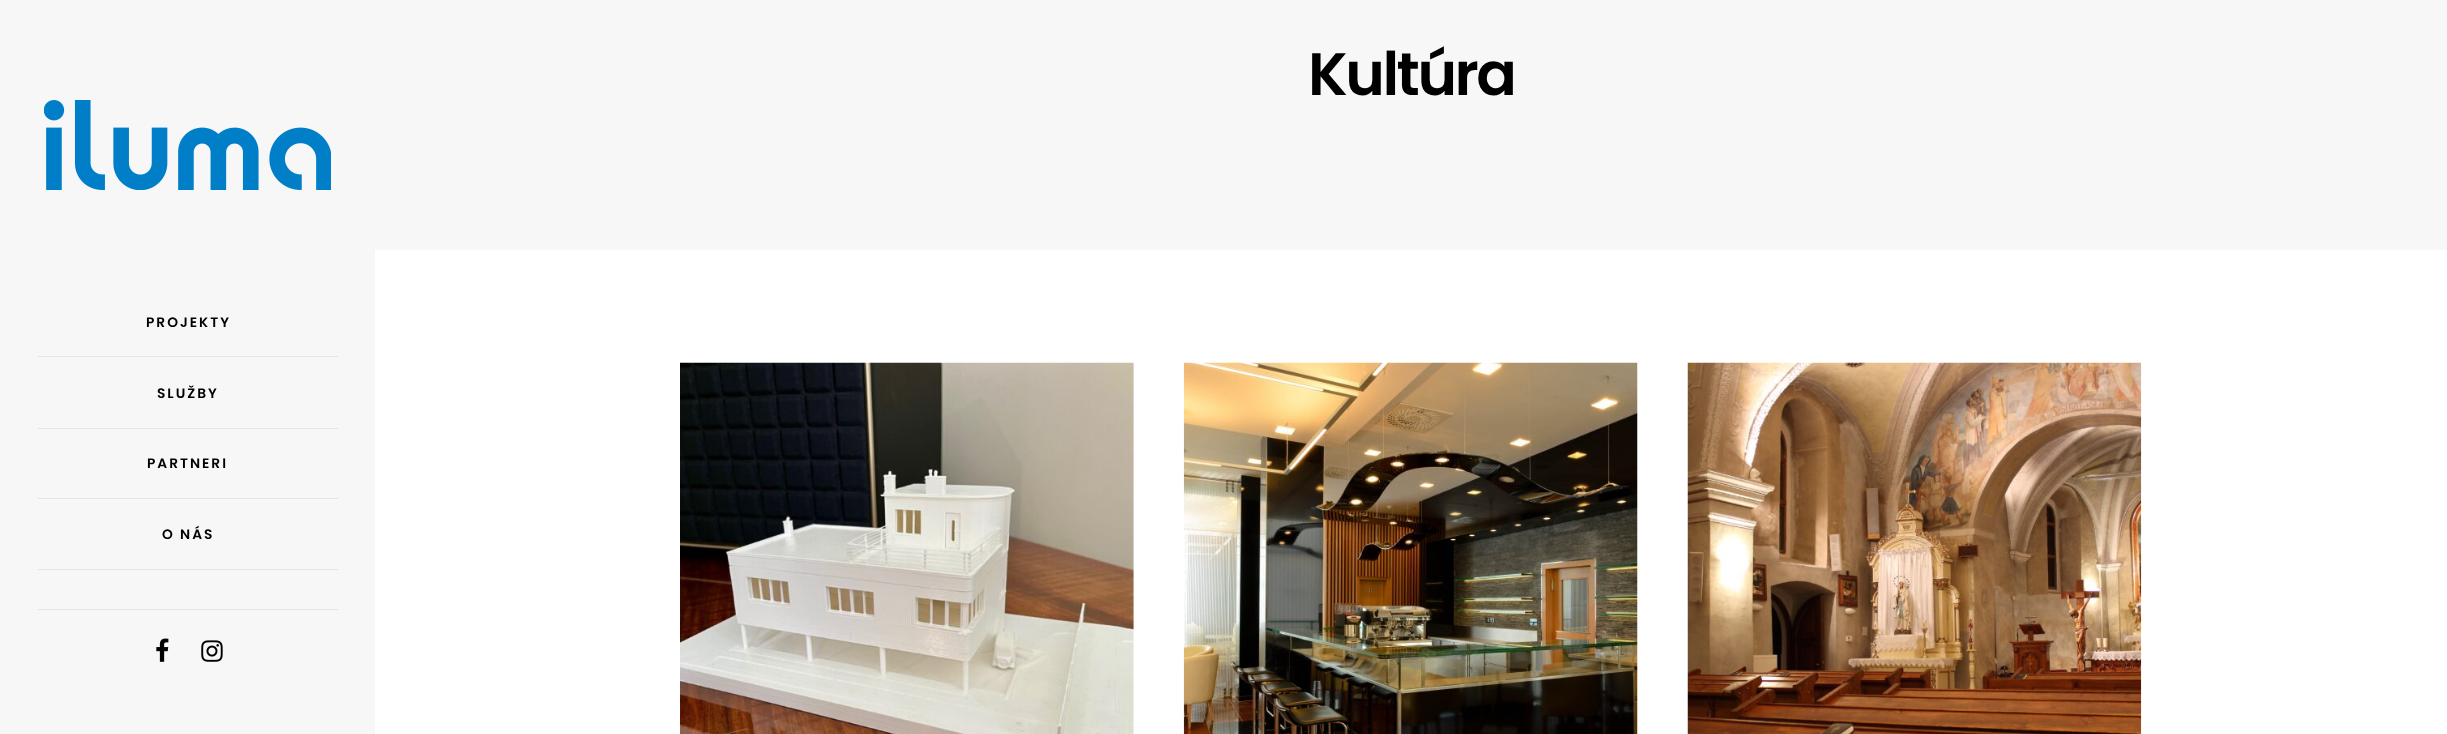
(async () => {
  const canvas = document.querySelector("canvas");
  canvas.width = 2447;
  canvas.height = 734;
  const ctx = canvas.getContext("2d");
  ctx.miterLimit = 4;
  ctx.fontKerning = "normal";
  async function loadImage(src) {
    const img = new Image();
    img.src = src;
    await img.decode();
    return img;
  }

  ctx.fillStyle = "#f7f7f7";
  ctx.fillRect(0, 0, 2447, 734);
  ctx.drawImage(await loadImage("img/1.png"), 44, 100, 287, 90);
  for (const [x, y, w, h, color] of [
    [38, 356, 300, 1, "#e5e5e5"],
    [38, 428, 300, 1, "#e5e5e5"],
    [38, 498, 300, 1, "#e5e5e5"],
    [38, 569, 300, 1, "#e5e5e5"],
    [38, 609, 300, 1, "#e5e5e5"],
  ]) {
    ctx.fillStyle = color;
    ctx.fillRect(x, y, w, h);
  }
  ctx.drawImage(await loadImage("img/2.png"), 156, 638, 13, 24);
  ctx.drawImage(await loadImage("img/3.png"), 201, 640, 22, 22);
  ctx.fillStyle = "#ffffff";
  ctx.fillRect(375, 250, 2072, 484);
  ctx.drawImage(await loadImage("img/4.png"), 680, 362, 454, 372);
  ctx.drawImage(await loadImage("img/5.png"), 1183, 362, 455, 372);
  ctx.drawImage(await loadImage("img/6.png"), 1687, 362, 455, 372);
  ctx.letterSpacing = "-2.5px";
  ctx.font = "600 60px Poppins";
  ctx.fillStyle = "#000000";
  ctx.fillText("Kultúra", 1308, 95);
  ctx.letterSpacing = "2px";
  ctx.font = "600 13.75px Poppins";
  for (const [text, x, y] of [
    ["PROJEKTY", 146, 327],
    ["SLUŽBY", 157, 398],
    ["PARTNERI", 147, 468],
    ["O NÁS", 162, 539],
  ]) {
    ctx.fillText(text, x, y);
  }
})();
